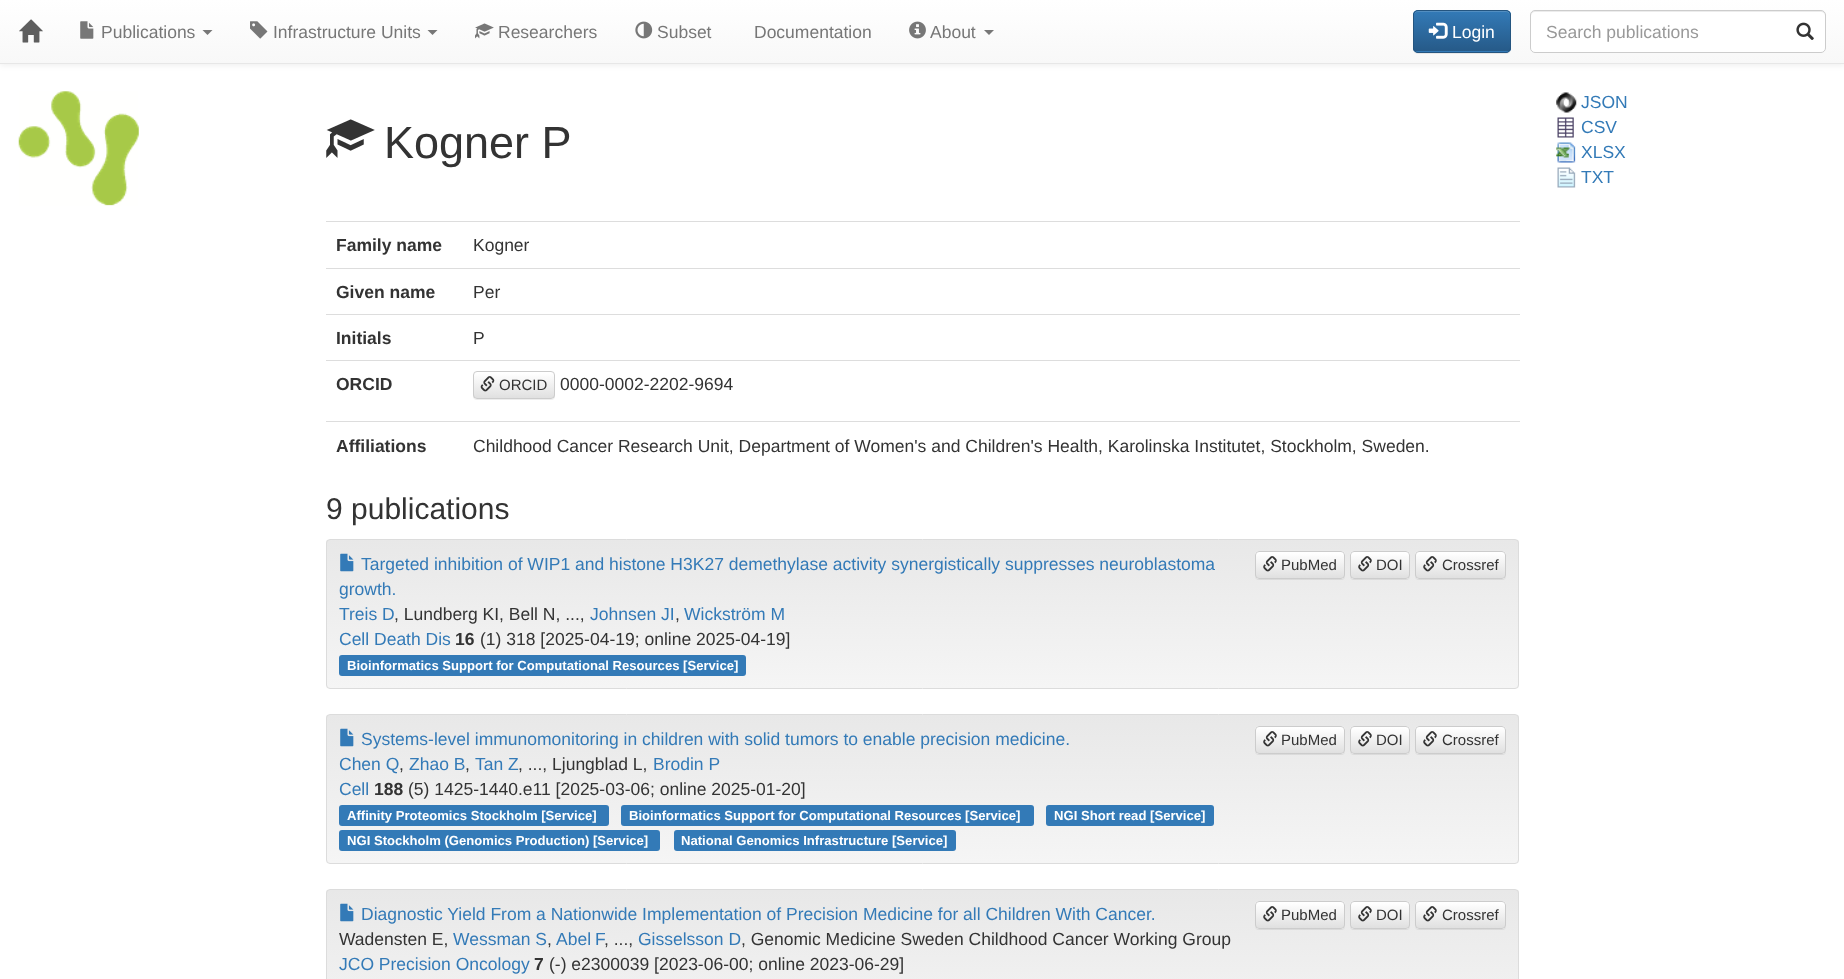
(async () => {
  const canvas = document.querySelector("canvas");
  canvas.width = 1844;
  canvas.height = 979;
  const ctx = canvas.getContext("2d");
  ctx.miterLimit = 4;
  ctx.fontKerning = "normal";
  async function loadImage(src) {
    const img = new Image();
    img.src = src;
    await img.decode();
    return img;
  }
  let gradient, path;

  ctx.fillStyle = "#ffffff";
  ctx.fillRect(0, 0, 1844, 979);
  ctx.fillStyle = "rgba(0, 0, 0, 0.07)";
  ctx.filter = "blur(3px)";
  ctx.beginPath();
  ctx.rect(0, 1, 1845, 64);
  ctx.fill();
  ctx.filter = "none";
  gradient = ctx.createLinearGradient(923, 0, 923, 63);
  gradient.addColorStop(0, "#ffffff");
  gradient.addColorStop(1, "#f8f8f8");
  ctx.fillStyle = gradient;
  ctx.fillRect(0, 0, 1844, 63);
  ctx.fillStyle = "#e7e7e7";
  ctx.fillRect(0, 63, 1844, 1);
  ctx.drawImage(await loadImage("img/1.png"), 19, 19, 24, 24);
  ctx.drawImage(await loadImage("img/2.png"), 80, 21, 14, 18);
  ctx.fillStyle = "#777777";
  path = new Path2D("M202.5 30H212.5L207.5 35Z");
  ctx.fill(path);
  ctx.drawImage(await loadImage("img/3.png"), 250, 21, 18, 18);
  path = new Path2D("M427.5 30H437.5L432.5 35Z");
  ctx.fill(path);
  ctx.drawImage(await loadImage("img/4.png"), 475, 23, 19, 16);
  ctx.drawImage(await loadImage("img/5.png"), 635, 21, 18, 18);
  ctx.drawImage(await loadImage("img/6.png"), 909, 21, 17, 18);
  path = new Path2D("M984 30H994L989 35Z");
  ctx.fill(path);
  ctx.fillStyle = "rgba(0, 0, 0, 0.07)";
  ctx.filter = "blur(0.5px)";
  ctx.beginPath();
  ctx.roundRect(1413, 11, 98, 43, 5);
  ctx.fill();
  ctx.filter = "none";
  ctx.fillStyle = "#337ab7";
  ctx.beginPath();
  ctx.roundRect(1413, 10, 98, 43, 5);
  ctx.fill();
  ctx.save();
  ctx.beginPath();
  ctx.roundRect(1413, 10, 98, 43, 5);
  ctx.clip();
  gradient = ctx.createLinearGradient(1462, 11, 1462, 51);
  gradient.addColorStop(0, "#337ab7");
  gradient.addColorStop(1, "#265a88");
  ctx.fillStyle = gradient;
  ctx.fillRect(1413, 11, 98, 40);
  ctx.restore();
  ctx.fillStyle = "#528ec1";
  path = new Path2D("M1418 12H1506C1508 12 1510 14 1510 16C1510 7 1496 11 1491 11H1433C1428 11 1414 7 1414 16C1414 14 1415 12 1418 12Z");
  ctx.fill(path);
  ctx.beginPath();
  ctx.roundRect(1413.5, 10.5, 97, 42, 4.5);
  ctx.strokeStyle = "#245580";
  ctx.stroke();
  ctx.drawImage(await loadImage("img/7.png"), 1428, 22, 20, 17);
  ctx.fillStyle = "#ffffff";
  ctx.beginPath();
  ctx.roundRect(1530, 10, 296, 43, 5);
  ctx.fill();
  ctx.fillStyle = "#ececec";
  path = new Path2D("M1535 12H1821C1823 12 1825 14 1825 16C1825 13 1824 11 1821 11H1535C1532 11 1531 13 1531 16C1531 14 1533 12 1535 12Z");
  ctx.fill(path);
  ctx.beginPath();
  ctx.roundRect(1530.5, 10.5, 295, 42, 4.5);
  ctx.strokeStyle = "#cccccc";
  ctx.stroke();
  ctx.drawImage(await loadImage("img/8.png"), 1796, 22, 18, 18);
  ctx.drawImage(await loadImage("img/9.png"), 18, 91, 121, 115);
  ctx.drawImage(await loadImage("img/10.png"), 326, 119, 49, 39);
  ctx.drawImage(await loadImage("img/11.png"), 1556, 92, 21, 21);
  ctx.drawImage(await loadImage("img/12.png"), 1557, 117, 17, 21);
  ctx.drawImage(await loadImage("img/13.png"), 1556, 142, 20, 21);
  ctx.drawImage(await loadImage("img/14.png"), 1557, 167, 19, 21);
  for (const [x, y, w, h, color] of [
    [326, 221, 1194, 1, "#dddddd"],
    [326, 268, 1194, 1, "#dddddd"],
    [326, 314, 1194, 1, "#dddddd"],
    [326, 360, 1194, 1, "#dddddd"],
  ]) {
    ctx.fillStyle = color;
    ctx.fillRect(x, y, w, h);
  }
  ctx.fillStyle = "rgba(0, 0, 0, 0.07)";
  ctx.filter = "blur(0.5px)";
  ctx.beginPath();
  ctx.roundRect(473, 373, 82, 27, 4);
  ctx.fill();
  ctx.filter = "none";
  ctx.fillStyle = "#ffffff";
  ctx.beginPath();
  ctx.roundRect(473, 371, 82, 28, 4);
  ctx.fill();
  ctx.save();
  ctx.beginPath();
  ctx.roundRect(473, 371, 82, 28, 4);
  ctx.clip();
  gradient = ctx.createLinearGradient(514, 373, 514, 398);
  gradient.addColorStop(0, "#ffffff");
  gradient.addColorStop(1, "#e0e0e0");
  ctx.fillStyle = gradient;
  ctx.fillRect(473, 373, 82, 25);
  ctx.restore();
  ctx.beginPath();
  ctx.roundRect(473.5, 371.5, 81, 27, 3.5);
  ctx.stroke();
  ctx.drawImage(await loadImage("img/15.png"), 480, 376, 15, 16);
  ctx.fillStyle = "#dddddd";
  ctx.fillRect(326, 421, 1194, 1);
  ctx.save();
  ctx.beginPath();
  ctx.roundRect(326, 539, 1193, 150, 4);
  ctx.clip();
  gradient = ctx.createLinearGradient(923, 540, 923, 688);
  gradient.addColorStop(0, "#e8e8e8");
  gradient.addColorStop(1, "#f5f5f5");
  ctx.fillStyle = gradient;
  ctx.fillRect(326, 540, 1193, 148);
  ctx.restore();
  ctx.beginPath();
  ctx.roundRect(326.5, 539.5, 1192, 149, 3.5);
  ctx.strokeStyle = "#dcdcdc";
  ctx.stroke();
  ctx.drawImage(await loadImage("img/16.png"), 340, 553, 14, 19);
  ctx.fillStyle = "rgba(0, 0, 0, 0.07)";
  ctx.filter = "blur(0.5px)";
  ctx.beginPath();
  ctx.roundRect(1255, 553, 90, 27, 4);
  ctx.fill();
  ctx.filter = "none";
  ctx.fillStyle = "#ffffff";
  ctx.beginPath();
  ctx.roundRect(1255, 551, 90, 28, 4);
  ctx.fill();
  ctx.save();
  ctx.beginPath();
  ctx.roundRect(1255, 551, 90, 28, 4);
  ctx.clip();
  gradient = ctx.createLinearGradient(1300, 553, 1300, 578);
  gradient.addColorStop(0, "#ffffff");
  gradient.addColorStop(1, "#e0e0e0");
  ctx.fillStyle = gradient;
  ctx.fillRect(1255, 553, 90, 25);
  ctx.restore();
  ctx.beginPath();
  ctx.roundRect(1255.5, 551.5, 89, 27, 3.5);
  ctx.strokeStyle = "#cccccc";
  ctx.stroke();
  ctx.drawImage(await loadImage("img/17.png"), 1263, 556, 14, 16);
  ctx.fillStyle = "rgba(0, 0, 0, 0.07)";
  ctx.filter = "blur(0.5px)";
  ctx.beginPath();
  ctx.roundRect(1350, 553, 60, 27, 4);
  ctx.fill();
  ctx.filter = "none";
  ctx.fillStyle = "#ffffff";
  ctx.beginPath();
  ctx.roundRect(1350, 551, 60, 28, 4);
  ctx.fill();
  ctx.save();
  ctx.beginPath();
  ctx.roundRect(1350, 551, 60, 28, 4);
  ctx.clip();
  gradient = ctx.createLinearGradient(1380, 553, 1380, 578);
  gradient.addColorStop(0, "#ffffff");
  gradient.addColorStop(1, "#e0e0e0");
  ctx.fillStyle = gradient;
  ctx.fillRect(1350, 553, 60, 25);
  ctx.restore();
  ctx.beginPath();
  ctx.roundRect(1350.5, 551.5, 59, 27, 3.5);
  ctx.stroke();
  ctx.drawImage(await loadImage("img/17.png"), 1358, 556, 14, 16);
  ctx.fillStyle = "rgba(0, 0, 0, 0.07)";
  ctx.filter = "blur(0.5px)";
  ctx.beginPath();
  ctx.roundRect(1415, 553, 91, 27, 4);
  ctx.fill();
  ctx.filter = "none";
  ctx.fillStyle = "#ffffff";
  ctx.beginPath();
  ctx.roundRect(1415, 551, 91, 28, 4);
  ctx.fill();
  ctx.save();
  ctx.beginPath();
  ctx.roundRect(1415, 551, 91, 28, 4);
  ctx.clip();
  gradient = ctx.createLinearGradient(1461, 553, 1461, 578);
  gradient.addColorStop(0, "#ffffff");
  gradient.addColorStop(1, "#e0e0e0");
  ctx.fillStyle = gradient;
  ctx.fillRect(1415, 553, 91, 25);
  ctx.restore();
  ctx.beginPath();
  ctx.roundRect(1415.5, 551.5, 90, 27, 3.5);
  ctx.stroke();
  ctx.drawImage(await loadImage("img/17.png"), 1423, 556, 14, 16);
  ctx.fillStyle = "#337ab7";
  ctx.beginPath();
  ctx.roundRect(339, 655, 407, 21, 3);
  ctx.fill();
  ctx.save();
  ctx.beginPath();
  ctx.roundRect(326, 714, 1193, 150, 4);
  ctx.clip();
  gradient = ctx.createLinearGradient(923, 715, 923, 863);
  gradient.addColorStop(0, "#e8e8e8");
  gradient.addColorStop(1, "#f5f5f5");
  ctx.fillStyle = gradient;
  ctx.fillRect(326, 715, 1193, 148);
  ctx.restore();
  ctx.beginPath();
  ctx.roundRect(326.5, 714.5, 1192, 149, 3.5);
  ctx.strokeStyle = "#dcdcdc";
  ctx.stroke();
  ctx.drawImage(await loadImage("img/16.png"), 340, 728, 14, 19);
  ctx.fillStyle = "rgba(0, 0, 0, 0.07)";
  ctx.filter = "blur(0.5px)";
  ctx.beginPath();
  ctx.roundRect(1255, 728, 90, 27, 4);
  ctx.fill();
  ctx.filter = "none";
  ctx.fillStyle = "#ffffff";
  ctx.beginPath();
  ctx.roundRect(1255, 726, 90, 28, 4);
  ctx.fill();
  ctx.save();
  ctx.beginPath();
  ctx.roundRect(1255, 726, 90, 28, 4);
  ctx.clip();
  gradient = ctx.createLinearGradient(1300, 728, 1300, 753);
  gradient.addColorStop(0, "#ffffff");
  gradient.addColorStop(1, "#e0e0e0");
  ctx.fillStyle = gradient;
  ctx.fillRect(1255, 728, 90, 25);
  ctx.restore();
  ctx.beginPath();
  ctx.roundRect(1255.5, 726.5, 89, 27, 3.5);
  ctx.strokeStyle = "#cccccc";
  ctx.stroke();
  ctx.drawImage(await loadImage("img/17.png"), 1263, 731, 14, 16);
  ctx.fillStyle = "rgba(0, 0, 0, 0.07)";
  ctx.filter = "blur(0.5px)";
  ctx.beginPath();
  ctx.roundRect(1350, 728, 60, 27, 4);
  ctx.fill();
  ctx.filter = "none";
  ctx.fillStyle = "#ffffff";
  ctx.beginPath();
  ctx.roundRect(1350, 726, 60, 28, 4);
  ctx.fill();
  ctx.save();
  ctx.beginPath();
  ctx.roundRect(1350, 726, 60, 28, 4);
  ctx.clip();
  gradient = ctx.createLinearGradient(1380, 728, 1380, 753);
  gradient.addColorStop(0, "#ffffff");
  gradient.addColorStop(1, "#e0e0e0");
  ctx.fillStyle = gradient;
  ctx.fillRect(1350, 728, 60, 25);
  ctx.restore();
  ctx.beginPath();
  ctx.roundRect(1350.5, 726.5, 59, 27, 3.5);
  ctx.stroke();
  ctx.drawImage(await loadImage("img/17.png"), 1358, 731, 14, 16);
  ctx.fillStyle = "rgba(0, 0, 0, 0.07)";
  ctx.filter = "blur(0.5px)";
  ctx.beginPath();
  ctx.roundRect(1415, 728, 91, 27, 4);
  ctx.fill();
  ctx.filter = "none";
  ctx.fillStyle = "#ffffff";
  ctx.beginPath();
  ctx.roundRect(1415, 726, 91, 28, 4);
  ctx.fill();
  ctx.save();
  ctx.beginPath();
  ctx.roundRect(1415, 726, 91, 28, 4);
  ctx.clip();
  gradient = ctx.createLinearGradient(1461, 728, 1461, 753);
  gradient.addColorStop(0, "#ffffff");
  gradient.addColorStop(1, "#e0e0e0");
  ctx.fillStyle = gradient;
  ctx.fillRect(1415, 728, 91, 25);
  ctx.restore();
  ctx.beginPath();
  ctx.roundRect(1415.5, 726.5, 90, 27, 3.5);
  ctx.stroke();
  ctx.drawImage(await loadImage("img/17.png"), 1423, 731, 14, 16);
  ctx.fillStyle = "#337ab7";
  ctx.beginPath();
  ctx.roundRect(339, 805, 270, 21, 3);
  ctx.fill();
  ctx.beginPath();
  ctx.roundRect(621, 805, 413, 21, 3);
  ctx.fill();
  ctx.beginPath();
  ctx.roundRect(1046, 805, 168, 21, 3);
  ctx.fill();
  ctx.beginPath();
  ctx.roundRect(339, 830, 321, 21, 3);
  ctx.fill();
  ctx.beginPath();
  ctx.roundRect(674, 830, 282, 21, 3);
  ctx.fill();
  ctx.save();
  ctx.beginPath();
  ctx.roundRect(326, 889, 1193, 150, 4);
  ctx.clip();
  gradient = ctx.createLinearGradient(923, 890, 923, 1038);
  gradient.addColorStop(0, "#e8e8e8");
  gradient.addColorStop(1, "#f5f5f5");
  ctx.fillStyle = gradient;
  ctx.fillRect(326, 890, 1193, 89);
  ctx.restore();
  ctx.beginPath();
  ctx.roundRect(326.5, 889.5, 1192, 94, 3.5);
  ctx.strokeStyle = "#dcdcdc";
  ctx.stroke();
  ctx.drawImage(await loadImage("img/16.png"), 340, 903, 14, 19);
  ctx.fillStyle = "rgba(0, 0, 0, 0.07)";
  ctx.filter = "blur(0.5px)";
  ctx.beginPath();
  ctx.roundRect(1255, 903, 90, 27, 4);
  ctx.fill();
  ctx.filter = "none";
  ctx.fillStyle = "#ffffff";
  ctx.beginPath();
  ctx.roundRect(1255, 901, 90, 28, 4);
  ctx.fill();
  ctx.save();
  ctx.beginPath();
  ctx.roundRect(1255, 901, 90, 28, 4);
  ctx.clip();
  gradient = ctx.createLinearGradient(1300, 903, 1300, 928);
  gradient.addColorStop(0, "#ffffff");
  gradient.addColorStop(1, "#e0e0e0");
  ctx.fillStyle = gradient;
  ctx.fillRect(1255, 903, 90, 25);
  ctx.restore();
  ctx.beginPath();
  ctx.roundRect(1255.5, 901.5, 89, 27, 3.5);
  ctx.strokeStyle = "#cccccc";
  ctx.stroke();
  ctx.drawImage(await loadImage("img/17.png"), 1263, 906, 14, 16);
  ctx.fillStyle = "rgba(0, 0, 0, 0.07)";
  ctx.filter = "blur(0.5px)";
  ctx.beginPath();
  ctx.roundRect(1350, 903, 60, 27, 4);
  ctx.fill();
  ctx.filter = "none";
  ctx.fillStyle = "#ffffff";
  ctx.beginPath();
  ctx.roundRect(1350, 901, 60, 28, 4);
  ctx.fill();
  ctx.save();
  ctx.beginPath();
  ctx.roundRect(1350, 901, 60, 28, 4);
  ctx.clip();
  gradient = ctx.createLinearGradient(1380, 903, 1380, 928);
  gradient.addColorStop(0, "#ffffff");
  gradient.addColorStop(1, "#e0e0e0");
  ctx.fillStyle = gradient;
  ctx.fillRect(1350, 903, 60, 25);
  ctx.restore();
  ctx.beginPath();
  ctx.roundRect(1350.5, 901.5, 59, 27, 3.5);
  ctx.stroke();
  ctx.drawImage(await loadImage("img/17.png"), 1358, 906, 14, 16);
  ctx.fillStyle = "rgba(0, 0, 0, 0.07)";
  ctx.filter = "blur(0.5px)";
  ctx.beginPath();
  ctx.roundRect(1415, 903, 91, 27, 4);
  ctx.fill();
  ctx.filter = "none";
  ctx.fillStyle = "#ffffff";
  ctx.beginPath();
  ctx.roundRect(1415, 901, 91, 28, 4);
  ctx.fill();
  ctx.save();
  ctx.beginPath();
  ctx.roundRect(1415, 901, 91, 28, 4);
  ctx.clip();
  gradient = ctx.createLinearGradient(1461, 903, 1461, 928);
  gradient.addColorStop(0, "#ffffff");
  gradient.addColorStop(1, "#e0e0e0");
  ctx.fillStyle = gradient;
  ctx.fillRect(1415, 903, 91, 25);
  ctx.restore();
  ctx.beginPath();
  ctx.roundRect(1415.5, 901.5, 90, 27, 3.5);
  ctx.stroke();
  ctx.drawImage(await loadImage("img/17.png"), 1423, 906, 14, 16);
  ctx.font = "17.5px Liberation Sans";
  ctx.fillStyle = "#777777";
  for (const [text, x, y] of [
    ["Publications", 101, 38],
    ["Infrastructure Units", 273, 38],
    ["Researchers", 498, 38],
    ["Subset", 657, 38],
    ["Documentation", 754, 38],
    ["About", 930, 38],
  ]) {
    ctx.fillText(text, x, y);
  }
  ctx.fillStyle = "#ffffff";
  ctx.fillText("Login", 1452, 38);
  ctx.fillStyle = "#999999";
  ctx.fillText("Search publications", 1546, 38);
  ctx.font = "45px Liberation Sans";
  ctx.fillStyle = "#333333";
  ctx.fillText("Kogner P", 384, 158);
  ctx.font = "17.5px Liberation Sans";
  ctx.fillStyle = "#337ab7";
  for (const [text, x, y] of [
    ["JSON", 1581, 108],
    ["CSV", 1581, 133],
    ["XLSX", 1581, 158],
    ["TXT", 1581, 183],
  ]) {
    ctx.fillText(text, x, y);
  }
  ctx.font = "bold 17.5px Liberation Sans";
  ctx.fillStyle = "#333333";
  ctx.fillText("Family name", 336, 251);
  ctx.font = "17.5px Liberation Sans";
  ctx.fillText("Kogner", 473, 251);
  ctx.font = "bold 17.5px Liberation Sans";
  ctx.fillText("Given name", 336, 298);
  ctx.font = "17.5px Liberation Sans";
  ctx.fillText("Per", 473, 298);
  ctx.font = "bold 17.5px Liberation Sans";
  ctx.fillText("Initials", 336, 344);
  ctx.font = "17.5px Liberation Sans";
  ctx.fillText("P", 473, 344);
  ctx.font = "bold 17.5px Liberation Sans";
  ctx.fillText("ORCID", 336, 390);
  ctx.font = "15px Liberation Sans";
  ctx.fillText("ORCID", 499, 390);
  ctx.font = "17.5px Liberation Sans";
  ctx.fillText("0000-0002-2202-9694", 560, 390);
  ctx.font = "bold 17.5px Liberation Sans";
  ctx.fillText("Affiliations", 336, 452);
  ctx.font = "17.5px Liberation Sans";
  ctx.fillText("Childhood Cancer Research Unit, Department of Women's and Children's Health, Karolinska Institutet, Stockholm, Sweden.", 473, 452);
  ctx.font = "30px Liberation Sans";
  ctx.fillText("9 publications", 326, 519);
  ctx.font = "17.5px Liberation Sans";
  ctx.fillStyle = "#337ab7";
  ctx.fillText("Targeted inhibition of WIP1 and histone H3K27 demethylase activity synergistically suppresses neuroblastoma", 361, 570);
  ctx.fillText("growth.", 339, 595);
  ctx.font = "15px Liberation Sans";
  ctx.fillStyle = "#333333";
  for (const [text, x, y] of [
    ["PubMed", 1281, 570],
    ["DOI", 1376, 570],
    ["Crossref", 1442, 570],
  ]) {
    ctx.fillText(text, x, y);
  }
  ctx.font = "17.5px Liberation Sans";
  ctx.fillStyle = "#337ab7";
  ctx.fillText("Treis D", 339, 620);
  ctx.fillStyle = "#333333";
  ctx.fillText(", Lundberg KI, Bell N, ...,", 394, 620);
  ctx.fillStyle = "#337ab7";
  ctx.fillText("Johnsen JI", 590, 620);
  ctx.fillStyle = "#333333";
  ctx.fillText(",", 675, 620);
  ctx.fillStyle = "#337ab7";
  ctx.fillText("Wickström M", 684, 620);
  ctx.fillText("Cell Death Dis", 339, 645);
  ctx.font = "bold 17.5px Liberation Sans";
  ctx.fillStyle = "#333333";
  ctx.fillText("16", 455, 645);
  ctx.font = "17.5px Liberation Sans";
  ctx.fillText("(1) 318 [2025-04-19; online 2025-04-19]", 480, 645);
  ctx.font = "bold 13.1px Liberation Sans";
  ctx.fillStyle = "#ffffff";
  ctx.fillText("Bioinformatics Support for Computational Resources [Service]", 347, 670);
  ctx.font = "17.5px Liberation Sans";
  ctx.fillStyle = "#337ab7";
  ctx.fillText("Systems-level immunomonitoring in children with solid tumors to enable precision medicine.", 361, 745);
  ctx.font = "15px Liberation Sans";
  ctx.fillStyle = "#333333";
  for (const [text, x, y] of [
    ["PubMed", 1281, 745],
    ["DOI", 1376, 745],
    ["Crossref", 1442, 745],
  ]) {
    ctx.fillText(text, x, y);
  }
  ctx.font = "17.5px Liberation Sans";
  ctx.fillStyle = "#337ab7";
  ctx.fillText("Chen Q", 339, 770);
  ctx.fillStyle = "#333333";
  ctx.fillText(",", 399, 770);
  ctx.fillStyle = "#337ab7";
  ctx.fillText("Zhao B", 409, 770);
  ctx.fillStyle = "#333333";
  ctx.fillText(",", 465, 770);
  ctx.fillStyle = "#337ab7";
  ctx.fillText("Tan Z", 475, 770);
  ctx.fillStyle = "#333333";
  ctx.fillText(", ..., Ljungblad L,", 518, 770);
  ctx.fillStyle = "#337ab7";
  ctx.fillText("Brodin P", 653, 770);
  ctx.fillText("Cell", 339, 795);
  ctx.font = "bold 17.5px Liberation Sans";
  ctx.fillStyle = "#333333";
  ctx.fillText("188", 374, 795);
  ctx.font = "17.5px Liberation Sans";
  ctx.fillText("(5) 1425-1440.e11 [2025-03-06; online 2025-01-20]", 408, 795);
  ctx.font = "bold 13.1px Liberation Sans";
  ctx.fillStyle = "#ffffff";
  for (const [text, x, y] of [
    ["Affinity Proteomics Stockholm [Service]", 347, 820],
    ["Bioinformatics Support for Computational Resources [Service]", 629, 820],
    ["NGI Short read [Service]", 1054, 820],
    ["NGI Stockholm (Genomics Production) [Service]", 347, 845],
    ["National Genomics Infrastructure [Service]", 681, 845],
  ]) {
    ctx.fillText(text, x, y);
  }
  ctx.font = "17.5px Liberation Sans";
  ctx.fillStyle = "#337ab7";
  ctx.fillText("Diagnostic Yield From a Nationwide Implementation of Precision Medicine for all Children With Cancer.", 361, 920);
  ctx.font = "15px Liberation Sans";
  ctx.fillStyle = "#333333";
  for (const [text, x, y] of [
    ["PubMed", 1281, 920],
    ["DOI", 1376, 920],
    ["Crossref", 1442, 920],
  ]) {
    ctx.fillText(text, x, y);
  }
  ctx.font = "17.5px Liberation Sans";
  ctx.fillText("Wadensten E,", 339, 945);
  ctx.fillStyle = "#337ab7";
  ctx.fillText("Wessman S", 453, 945);
  ctx.fillStyle = "#333333";
  ctx.fillText(",", 547, 945);
  ctx.wordSpacing = "-1px";
  ctx.fillStyle = "#337ab7";
  ctx.fillText("Abel F", 556, 945);
  ctx.wordSpacing = "0px";
  ctx.fillStyle = "#333333";
  ctx.fillText(", ...,", 604, 945);
  ctx.fillStyle = "#337ab7";
  ctx.fillText("Gisselsson D", 638, 945);
  ctx.fillStyle = "#333333";
  ctx.fillText(", Genomic Medicine Sweden Childhood Cancer Working Group", 741, 945);
  ctx.fillStyle = "#337ab7";
  ctx.fillText("JCO Precision Oncology", 339, 970);
  ctx.font = "bold 17.5px Liberation Sans";
  ctx.fillStyle = "#333333";
  ctx.fillText("7", 534, 970);
  ctx.font = "17.5px Liberation Sans";
  ctx.fillText("(-) e2300039 [2023-06-00; online 2023-06-29]", 549, 970);
})();
